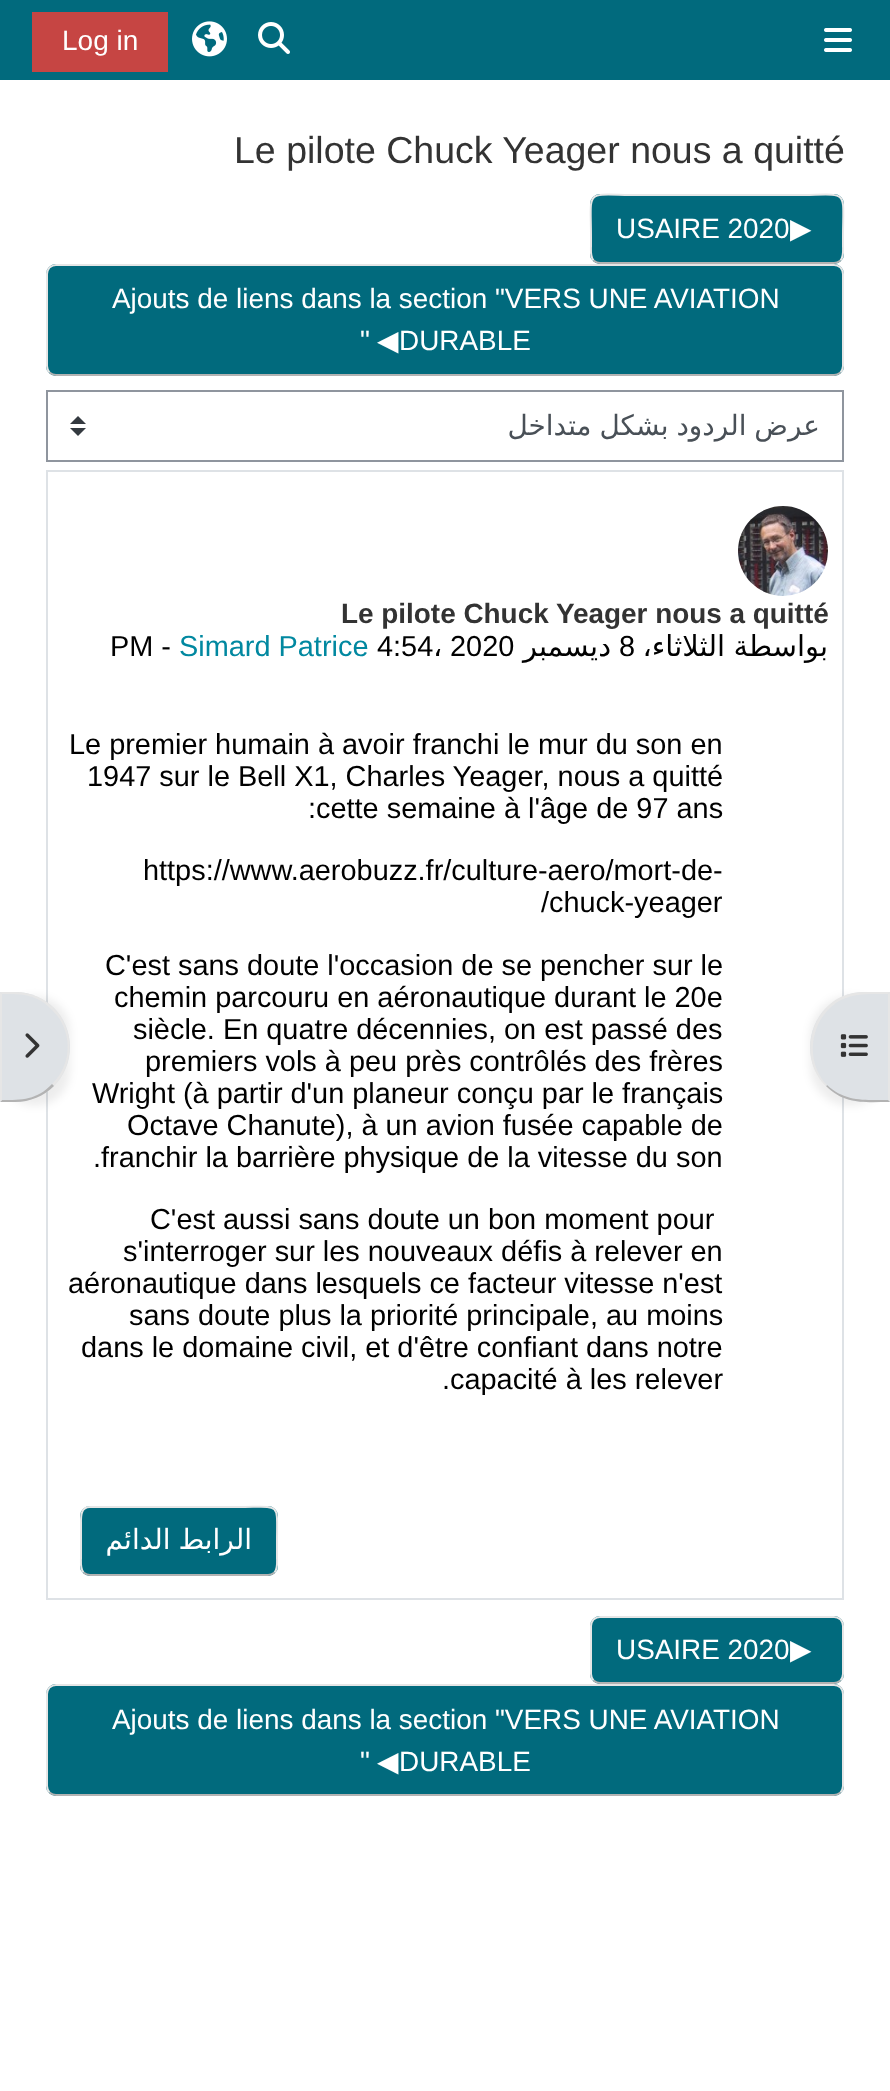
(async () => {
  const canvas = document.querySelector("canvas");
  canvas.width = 890;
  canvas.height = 2091;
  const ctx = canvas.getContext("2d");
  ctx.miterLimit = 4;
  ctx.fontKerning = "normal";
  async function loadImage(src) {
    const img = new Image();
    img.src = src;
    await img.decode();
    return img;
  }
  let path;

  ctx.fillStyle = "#ffffff";
  ctx.fillRect(0, 0, 890, 2091);
  ctx.fillStyle = "#016a7d";
  ctx.fillRect(0, 0, 890, 80);
  ctx.fillStyle = "#c64543";
  ctx.fillRect(32, 12, 136, 60);
  ctx.drawImage(await loadImage("img/1.png"), 192, 21, 35, 36);
  ctx.drawImage(await loadImage("img/2.png"), 258, 22, 32, 32);
  ctx.drawImage(await loadImage("img/3.png"), 824, 28, 28, 24);
  ctx.strokeStyle = "#dee2e6";
  ctx.lineWidth = 2;
  ctx.strokeRect(47, 471, 796, 1128);
  ctx.fillStyle = "rgba(0, 0, 0, 0.07)";
  ctx.filter = "blur(4px)";
  ctx.beginPath();
  ctx.roundRect(0, 996, 70, 110, 55);
  ctx.fill();
  ctx.filter = "none";
  ctx.fillStyle = "#dee2e6";
  ctx.beginPath();
  ctx.roundRect(0, 992, 70, 110, [0, 55, 55, 0]);
  ctx.fill();
  ctx.fillStyle = "#e6e6e6";
  path = new Path2D("M0 992L2 994C22 994 37 994 52 1010L54 1008C44 998 30 992 15 992Z");
  ctx.fill(path);
  path = new Path2D("M54 1008C75 1030 75 1064 54 1086L52 1084C73 1064 73 1030 52 1010Z");
  ctx.fill(path);
  ctx.fillStyle = "#b3b3b3";
  path = new Path2D("M15 1102C30 1102 44 1096 54 1086L52 1084C37 1100 22 1100 2 1100L0 1102Z");
  ctx.fill(path);
  ctx.fillStyle = "#e6e6e6";
  path = new Path2D("M2 994L0 992V1102L2 1100Z");
  ctx.fill(path);
  ctx.drawImage(await loadImage("img/4.png"), 25, 1033, 15, 25);
  ctx.fillStyle = "#016a7d";
  ctx.beginPath();
  ctx.roundRect(590, 194, 254, 70, 10);
  ctx.fill();
  path = new Path2D("M840.5 260.5C838.5 262 836.5 263 834 263H600C597.5 263 595.5 262 593.5 260.5");
  ctx.strokeStyle = "#b3b3b3";
  ctx.stroke(path);
  path = new Path2D("M593.5 260.5C590 256.5 591 250.5 591 245.5V237.5C591 186.5 583.5 195 639 195H795C850.5 195 843 186.5 843 237.5V245.5C843 250.5 844 256.5 840.5 260.5");
  ctx.strokeStyle = "#e6e6e6";
  ctx.stroke(path);
  ctx.beginPath();
  ctx.roundRect(46, 264, 798, 112, 10);
  ctx.fill();
  path = new Path2D("M840.5 372.5C838.5 374 836.5 375 834 375H56C53.5 375 51.5 374 49.5 372.5");
  ctx.strokeStyle = "#b3b3b3";
  ctx.stroke(path);
  path = new Path2D("M49.5 372.5C48 370.5 47 368.5 47 366V274C47 271.5 48 269.5 49.5 267.5C51.5 266 53.5 265 56 265H834C836.5 265 838.5 266 840.5 267.5C842 269.5 843 271.5 843 274V366C843 368.5 842 370.5 840.5 372.5");
  ctx.strokeStyle = "#e6e6e6";
  ctx.stroke(path);
  ctx.fillStyle = "#343a40";
  path = new Path2D("M78 416L70 424H86ZM78 436L70 428H86Z");
  ctx.fill(path);
  ctx.strokeStyle = "#8f959e";
  ctx.strokeRect(47, 391, 796, 70);
  ctx.drawImage(await loadImage("img/5.png"), 738, 506, 90, 90);
  ctx.fillStyle = "#016a7d";
  ctx.beginPath();
  ctx.roundRect(80, 1506, 198, 70, 10);
  ctx.fill();
  path = new Path2D("M274.5 1572.5C272.5 1574 270.5 1575 268 1575H90C87.5 1575 85.5 1574 83.5 1572.5");
  ctx.strokeStyle = "#b3b3b3";
  ctx.stroke(path);
  path = new Path2D("M83.5 1572.5C80 1568.5 81 1562.5 81 1557.5V1524.5C81 1517.5 80 1507 90 1507H238.5C281.5 1507 277 1501 277 1541V1557.5C277 1562.5 278 1568.5 274.5 1572.5");
  ctx.strokeStyle = "#e6e6e6";
  ctx.stroke(path);
  ctx.beginPath();
  ctx.roundRect(590, 1616, 254, 68, 10);
  ctx.fill();
  path = new Path2D("M840.5 1680.5C838.5 1682 836.5 1683 834 1683H600C597.5 1683 595.5 1682 593.5 1680.5");
  ctx.strokeStyle = "#b3b3b3";
  ctx.stroke(path);
  path = new Path2D("M593.5 1680.5C592 1678.5 591 1676.5 591 1674V1626C591 1623.5 592 1621.5 593.5 1619.5C595.5 1618 597.5 1617 600 1617H834C836.5 1617 838.5 1618 840.5 1619.5C842 1621.5 843 1623.5 843 1626V1674C843 1676.5 842 1678.5 840.5 1680.5");
  ctx.strokeStyle = "#e6e6e6";
  ctx.stroke(path);
  ctx.beginPath();
  ctx.roundRect(46, 1684, 798, 112, 10);
  ctx.fill();
  path = new Path2D("M840.5 1792.5C838.5 1794 836.5 1795 834 1795H56C53.5 1795 51.5 1794 49.5 1792.5");
  ctx.strokeStyle = "#b3b3b3";
  ctx.stroke(path);
  path = new Path2D("M49.5 1792.5C48 1790.5 47 1788.5 47 1786V1694C47 1691.5 48 1689.5 49.5 1687.5C51.5 1686 53.5 1685 56 1685H834C836.5 1685 838.5 1686 840.5 1687.5C842 1689.5 843 1691.5 843 1694V1786C843 1788.5 842 1790.5 840.5 1792.5");
  ctx.strokeStyle = "#e6e6e6";
  ctx.stroke(path);
  ctx.fillStyle = "rgba(0, 0, 0, 0.07)";
  ctx.filter = "blur(4px)";
  ctx.beginPath();
  ctx.roundRect(810, 996, 80, 110, 55);
  ctx.fill();
  ctx.filter = "none";
  ctx.fillStyle = "#dee2e6";
  ctx.beginPath();
  ctx.roundRect(810, 992, 80, 110, [55, 0, 0, 55]);
  ctx.fill();
  ctx.fillStyle = "#e6e6e6";
  path = new Path2D("M865 992C848 992 835 998 826 1008L828 1010C845 992 865 994 888 994L890 992Z");
  ctx.fill(path);
  path = new Path2D("M890 992L888 994V1100L890 1102Z");
  ctx.fill(path);
  ctx.fillStyle = "#b3b3b3";
  path = new Path2D("M890 1102C865 1102 845 1105 826 1086L827 1085C845 1102 865 1100 888 1100Z");
  ctx.fill(path);
  ctx.fillStyle = "#e6e6e6";
  path = new Path2D("M826 1008C806 1029 804 1065 826 1086L827 1085C807 1064 809 1030 828 1010Z");
  ctx.fill(path);
  ctx.drawImage(await loadImage("img/6.png"), 840, 1034, 28, 23);
  ctx.font = "28px Liberation Sans";
  ctx.fillStyle = "#ffffff";
  ctx.fillText("Log in", 62, 50);
  ctx.font = "37.5px Liberation Sans";
  ctx.fillStyle = "#333333";
  ctx.fillText("Le pilote Chuck Yeager nous a quitté", 234, 163);
  ctx.font = "27.9px Liberation Sans";
  ctx.fillStyle = "#ffffff";
  ctx.fillText("USAIRE 2020", 616, 238);
  ctx.font = "27.9px DejaVu Sans";
  ctx.fillText("▶︎", 790, 238);
  ctx.font = "27.9px Liberation Sans";
  ctx.fillText("Ajouts de liens dans la section \"VERS UNE AVIATION", 112, 308);
  ctx.fillText("\"", 360, 350);
  ctx.font = "27.9px DejaVu Sans";
  ctx.fillText("◀︎", 377, 350);
  ctx.font = "27.9px Liberation Sans";
  ctx.fillText("DURABLE", 399, 350);
  ctx.save();
  ctx.beginPath();
  ctx.rect(100, 406, 720, 42);
  ctx.clip();
  ctx.wordSpacing = "-1px";
  ctx.direction = "rtl";
  ctx.font = "27.9px DejaVu Sans";
  ctx.fillStyle = "#495057";
  ctx.fillText("عرض الردود بشكل متداخل", 820, 435);
  ctx.restore();
  ctx.font = "bold 27.9px Liberation Sans";
  ctx.fillStyle = "#333333";
  ctx.fillText("Le pilote Chuck Yeager nous a quitté", 341, 623);
  ctx.font = "28.9px Liberation Sans";
  ctx.fillStyle = "#000000";
  ctx.fillText("PM -", 110, 656);
  ctx.fillStyle = "#0188a0";
  ctx.fillText("Simard Patrice", 179, 656);
  ctx.fillStyle = "#000000";
  ctx.fillText("4:54", 377, 656);
  ctx.font = "28.9px DejaVu Sans";
  ctx.fillText("،", 433, 656);
  ctx.font = "28.9px Liberation Sans";
  ctx.fillText("2020", 450, 656);
  ctx.direction = "rtl";
  ctx.font = "28.9px DejaVu Sans";
  ctx.fillText("ديسمبر", 611, 656);
  ctx.direction = "ltr";
  ctx.font = "28.9px Liberation Sans";
  ctx.fillText("8", 619, 656);
  ctx.direction = "rtl";
  ctx.font = "28.9px DejaVu Sans";
  ctx.fillText("الثلاثاء،", 725, 656);
  ctx.fillText("بواسطة", 828, 656);
  ctx.direction = "ltr";
  ctx.font = "28.9px Liberation Sans";
  for (const [text, x, y] of [
    ["Le premier humain à avoir franchi le mur du son en", 69, 754],
    ["1947 sur le Bell X1, Charles Yeager, nous a quitté", 87, 786],
    [":cette semaine à l'âge de 97 ans", 308, 818],
    ["https://www.aerobuzz.fr/culture-aero/mort-de-", 143, 880],
    ["/chuck-yeager", 541, 912],
    ["C'est sans doute l'occasion de se pencher sur le", 105, 975],
    ["chemin parcouru en aéronautique durant le 20e", 114, 1007],
    ["siècle. En quatre décennies, on est passé des", 133, 1039],
    ["premiers vols à peu près contrôlés des frères", 145, 1071],
    ["Wright (à partir d'un planeur conçu par le français", 92, 1103],
    ["Octave Chanute), à un avion fusée capable de", 127, 1135],
    [".franchir la barrière physique de la vitesse du son", 93, 1167],
    ["C'est aussi sans doute un bon moment pour", 150, 1229],
    ["s'interroger sur les nouveaux défis à relever en", 123, 1261],
    ["aéronautique dans lesquels ce facteur vitesse n'est", 68, 1293],
    ["sans doute plus la priorité principale, au moins", 129, 1325],
    ["dans le domaine civil, et d'être confiant dans notre", 81, 1357],
    [".capacité à les relever", 442, 1389],
  ]) {
    ctx.fillText(text, x, y);
  }
  ctx.wordSpacing = "-1px";
  ctx.direction = "rtl";
  ctx.font = "27.9px DejaVu Sans";
  ctx.fillStyle = "#ffffff";
  ctx.fillText("الرابط الدائم", 252, 1549);
  ctx.wordSpacing = "0px";
  ctx.direction = "ltr";
  ctx.font = "27.9px Liberation Sans";
  ctx.fillText("USAIRE 2020", 616, 1659);
  ctx.font = "27.9px DejaVu Sans";
  ctx.fillText("▶︎", 790, 1659);
  ctx.font = "27.9px Liberation Sans";
  ctx.fillText("Ajouts de liens dans la section \"VERS UNE AVIATION", 112, 1729);
  ctx.fillText("\"", 360, 1771);
  ctx.font = "27.9px DejaVu Sans";
  ctx.fillText("◀︎", 377, 1771);
  ctx.font = "27.9px Liberation Sans";
  ctx.fillText("DURABLE", 399, 1771);
})();
